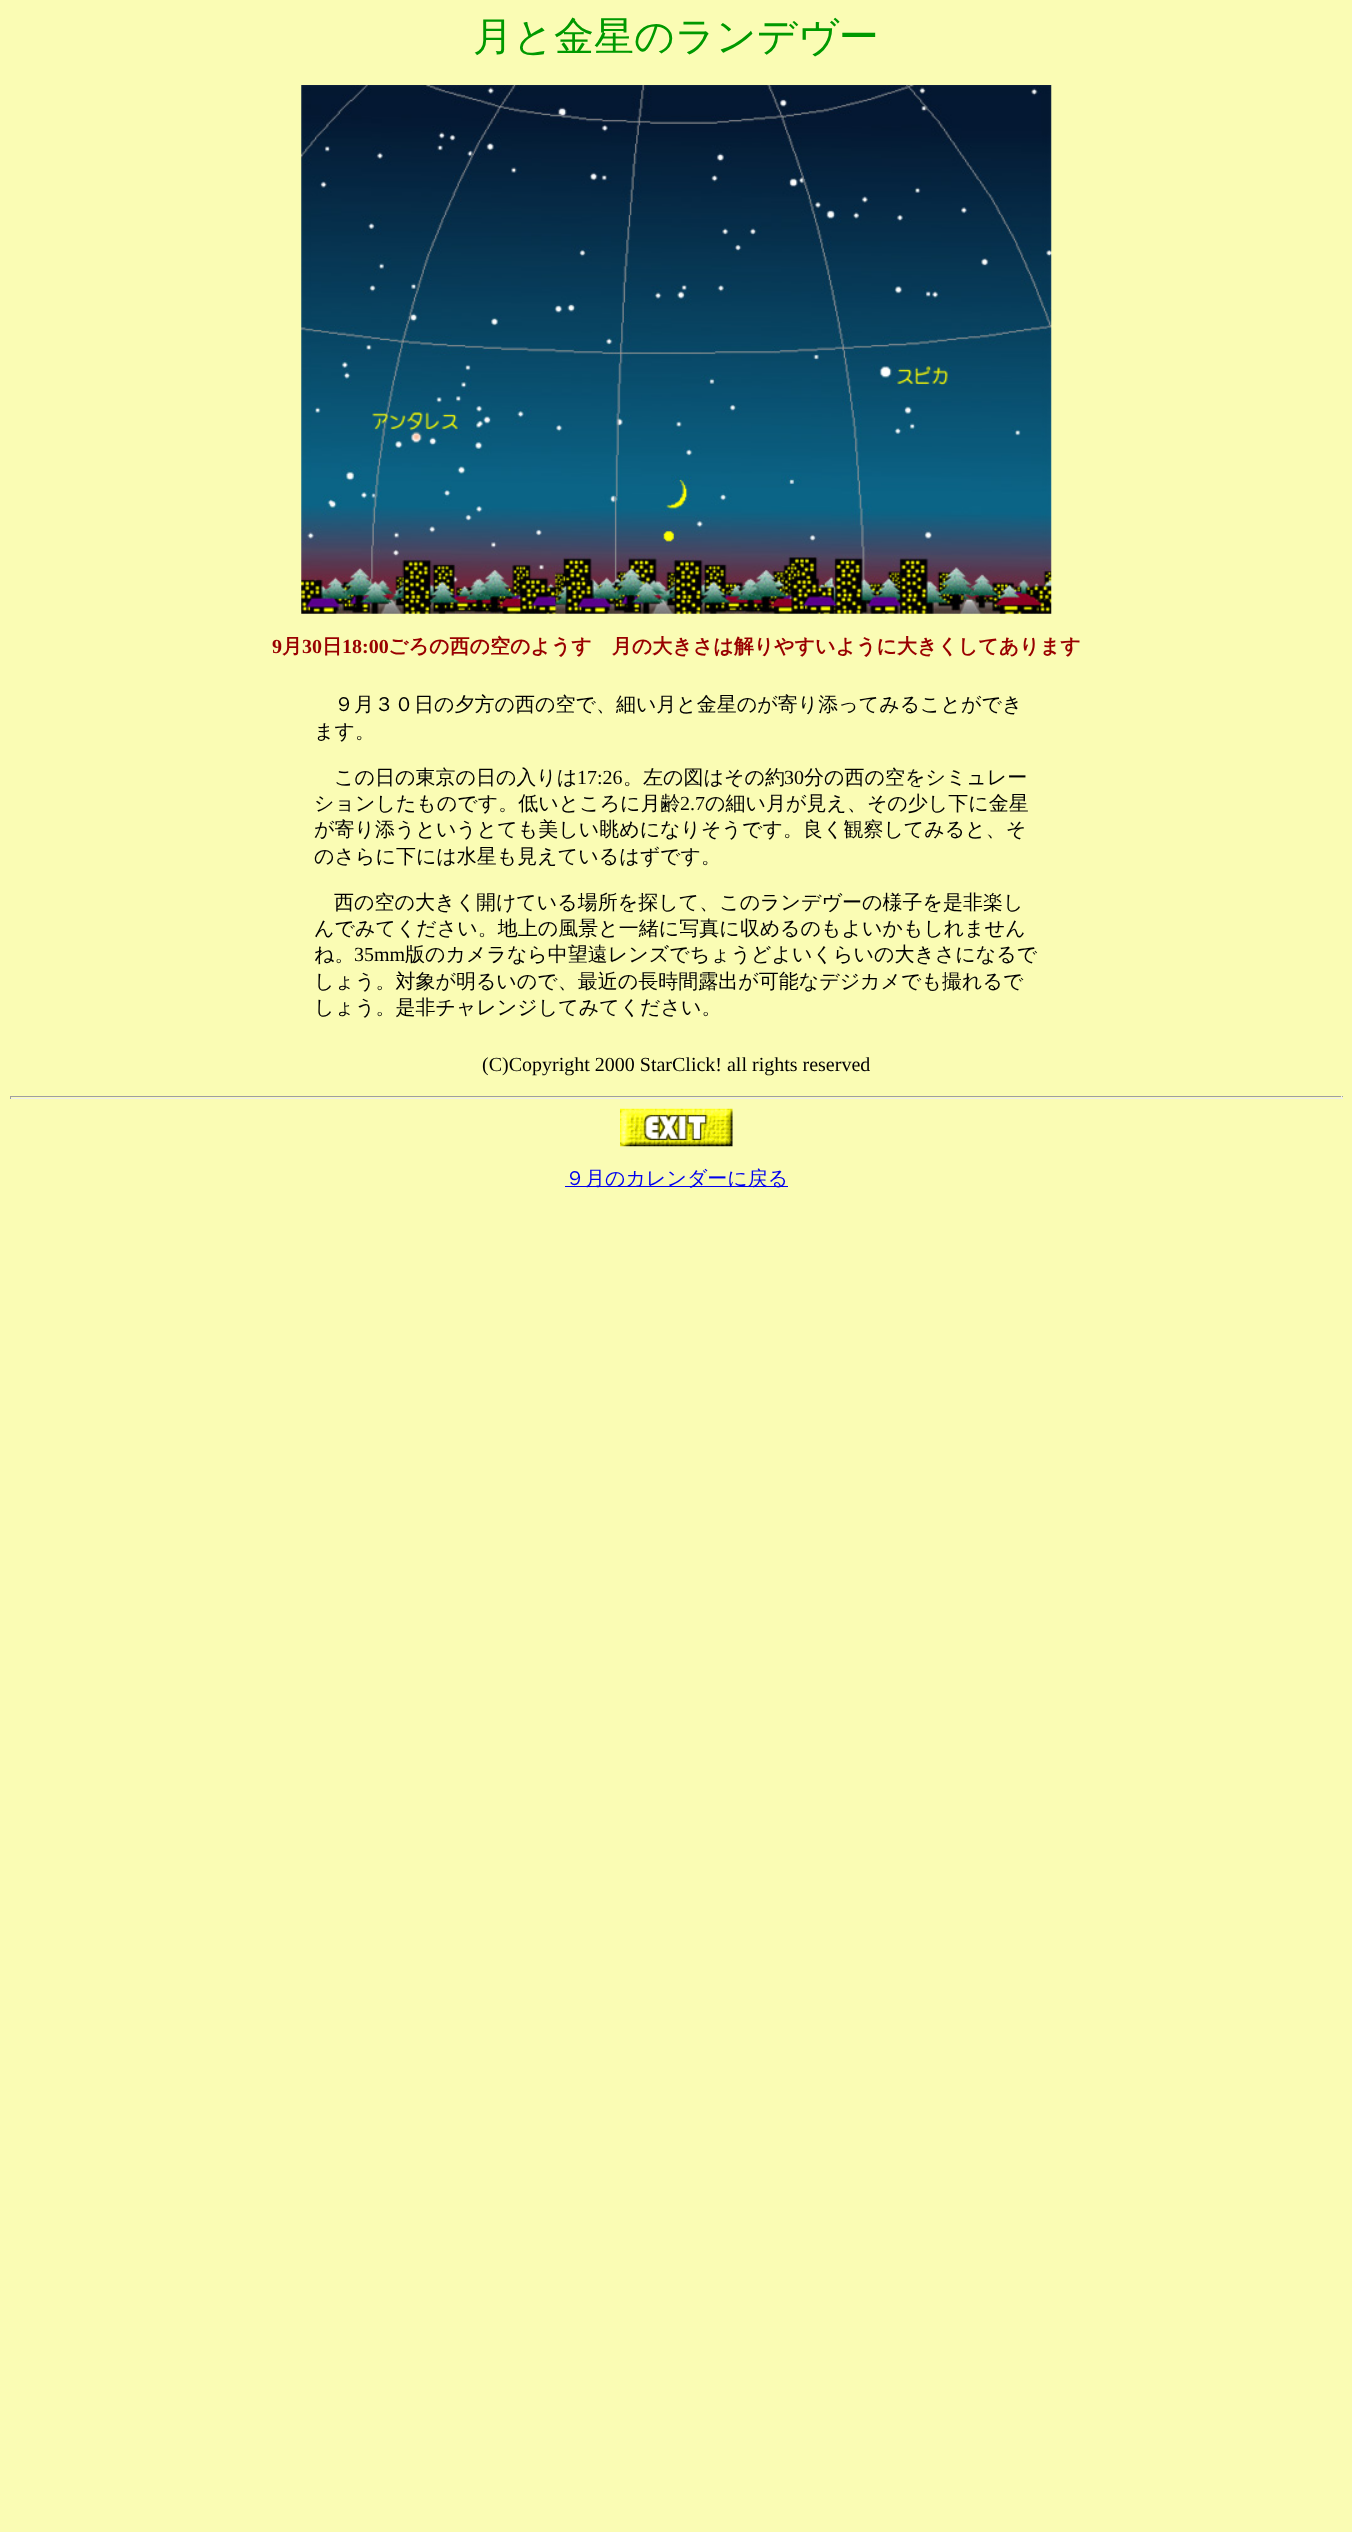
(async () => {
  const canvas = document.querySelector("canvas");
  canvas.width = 1352;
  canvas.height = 2532;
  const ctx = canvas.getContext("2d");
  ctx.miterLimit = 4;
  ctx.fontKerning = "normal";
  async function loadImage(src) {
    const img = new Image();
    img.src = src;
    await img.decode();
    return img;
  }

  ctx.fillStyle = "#fafcb4";
  ctx.fillRect(0, 0, 1352, 2532);
  ctx.drawImage(await loadImage("img/1.png"), 301, 85, 751, 529);
  for (const [x, y, w, h, color] of [
    [10, 1096, 1333, 1, "#9f9f9f"],
    [1341, 1096, 1, 3, "#eeeeee"],
    [10, 1098, 1333, 1, "#eeeeee"],
    [10, 1096, 1, 3, "#9f9f9f"],
  ]) {
    ctx.fillStyle = color;
    ctx.fillRect(x, y, w, h);
  }
  ctx.drawImage(await loadImage("img/2.png"), 620, 1108, 113, 39);
  ctx.fillStyle = "#0000ee";
  ctx.fillRect(565, 1186, 223, 1);
  ctx.font = "500 40px WenQuanYi Zen Hei";
  ctx.fillStyle = "#009900";
  ctx.fillText("月と金星のランデヴー", 473, 50);
  ctx.font = "bold 20px Liberation Serif";
  ctx.fillStyle = "#990000";
  ctx.fillText("9", 272, 653);
  ctx.font = "bold 20px WenQuanYi Zen Hei";
  ctx.fillText("月", 282, 653);
  ctx.font = "bold 20px Liberation Serif";
  ctx.fillText("30", 302, 653);
  ctx.font = "bold 20px WenQuanYi Zen Hei";
  ctx.fillText("日", 322, 653);
  ctx.font = "bold 20px Liberation Serif";
  ctx.fillText("18:00", 342, 653);
  ctx.font = "bold 20px WenQuanYi Zen Hei";
  ctx.fillText("ごろの西の空のようす　月の大きさは解りやすいように大きくしてあります", 388, 653);
  ctx.font = "500 20px WenQuanYi Zen Hei";
  ctx.fillStyle = "#000000";
  for (const [text, x, y] of [
    ["９月３０日の夕方の西の空で、細い月と金星のが寄り添ってみることができ", 334, 711],
    ["ます。", 314, 738],
    ["この日の東京の日の入りは", 334, 784],
  ]) {
    ctx.fillText(text, x, y);
  }
  ctx.font = "20px Liberation Serif";
  ctx.fillText("17:26", 577, 784);
  ctx.font = "500 20px WenQuanYi Zen Hei";
  ctx.fillText("。左の図はその約", 623, 784);
  ctx.font = "20px Liberation Serif";
  ctx.fillText("30", 784, 784);
  ctx.font = "500 20px WenQuanYi Zen Hei";
  ctx.fillText("分の西の空をシミュレー", 804, 784);
  ctx.fillText("ションしたものです。低いところに月齢", 314, 810);
  ctx.font = "20px Liberation Serif";
  ctx.fillText("2.7", 680, 810);
  ctx.font = "500 20px WenQuanYi Zen Hei";
  for (const [text, x, y] of [
    ["の細い月が見え、その少し下に金星", 705, 810],
    ["が寄り添うというとても美しい眺めになりそうです。良く観察してみると、そ", 314, 836],
    ["のさらに下には水星も見えているはずです。", 314, 863],
    ["西の空の大きく開けている場所を探して、このランデヴーの様子を是非楽し", 334, 909],
    ["んでみてください。地上の風景と一緒に写真に収めるのもよいかもしれません", 314, 935],
    ["ね。", 314, 961],
  ]) {
    ctx.fillText(text, x, y);
  }
  ctx.font = "20px Liberation Serif";
  ctx.fillText("35mm", 354, 961);
  ctx.font = "500 20px WenQuanYi Zen Hei";
  for (const [text, x, y] of [
    ["版のカメラなら中望遠レンズでちょうどよいくらいの大きさになるで", 405, 961],
    ["しょう。対象が明るいので、最近の長時間露出が可能なデジカメでも撮れるで", 314, 988],
    ["しょう。是非チャレンジしてみてください。", 314, 1014],
  ]) {
    ctx.fillText(text, x, y);
  }
  ctx.font = "20px Liberation Serif";
  ctx.fillText("(C)Copyright 2000 StarClick! all rights reserved", 482, 1071);
  ctx.font = "500 20px WenQuanYi Zen Hei";
  ctx.fillStyle = "#0000ee";
  ctx.fillText("９月のカレンダーに戻る", 565, 1185);
})();
